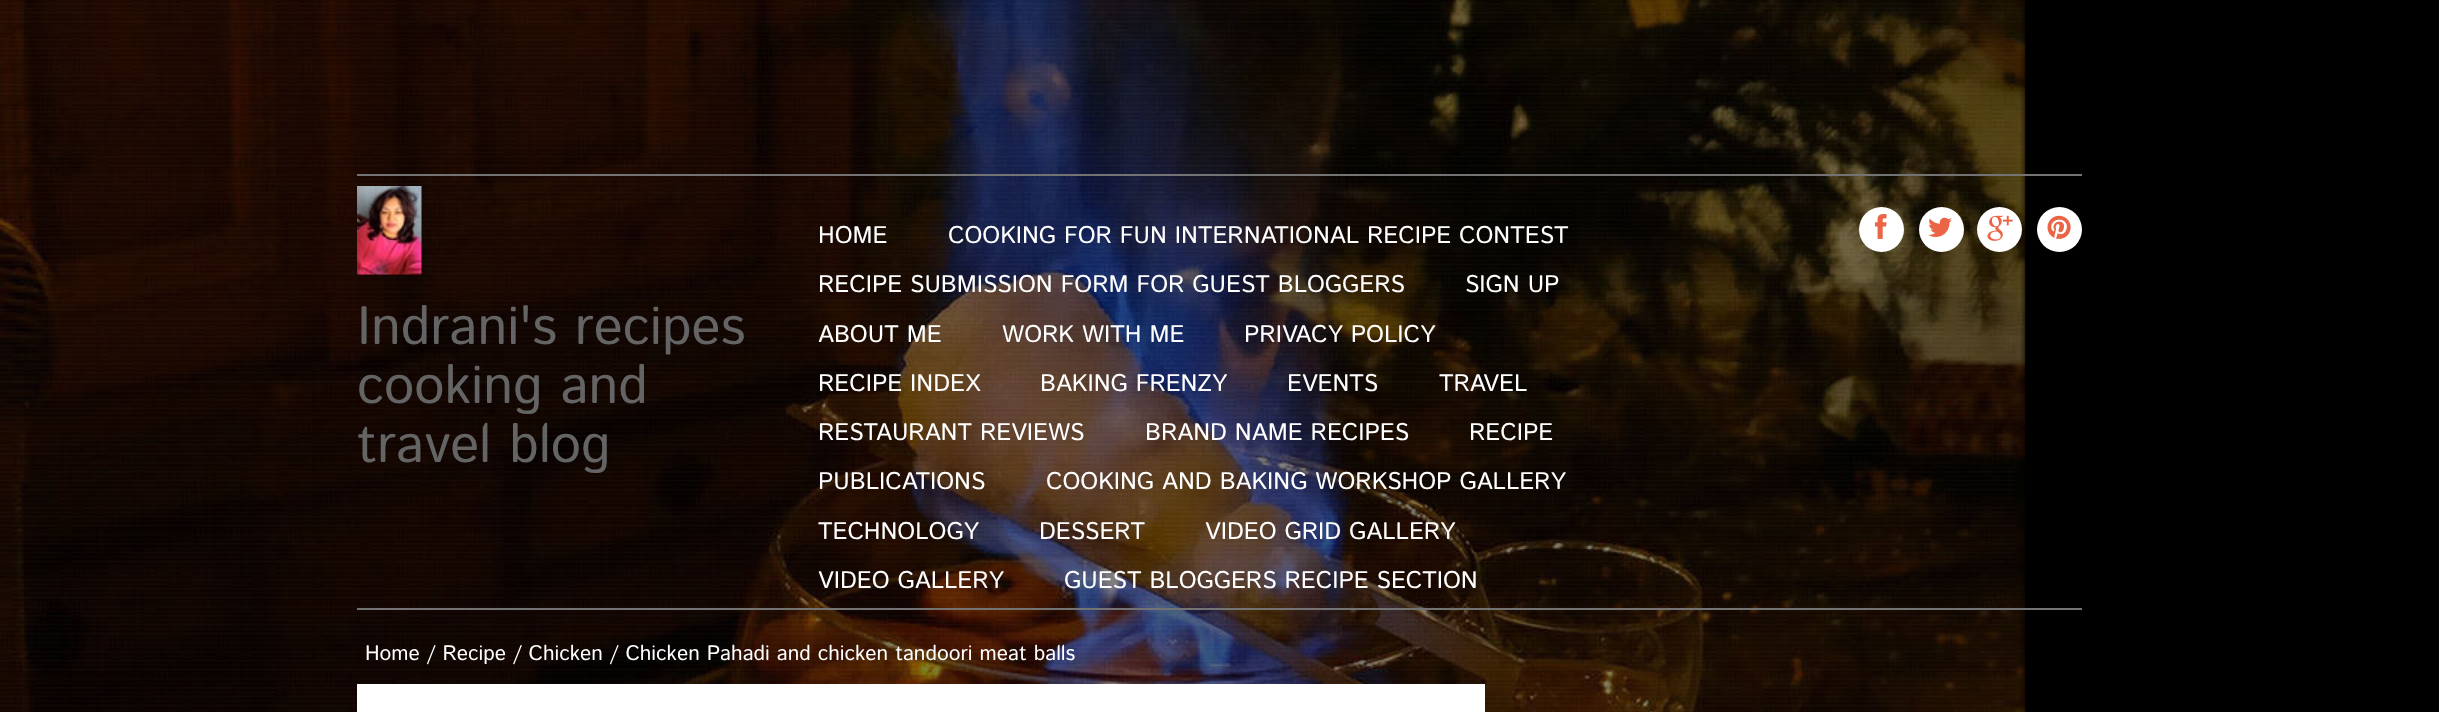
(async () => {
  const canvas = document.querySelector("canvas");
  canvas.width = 2439;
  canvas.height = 712;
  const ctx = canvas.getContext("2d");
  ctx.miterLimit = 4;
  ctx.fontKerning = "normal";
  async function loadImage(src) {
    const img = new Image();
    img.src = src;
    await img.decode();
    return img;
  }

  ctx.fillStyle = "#000000";
  ctx.fillRect(0, 0, 2439, 712);
  ctx.drawImage(await loadImage("img/1.png"), 0, 0, 2026, 712);
  ctx.fillStyle = "#737373";
  ctx.fillRect(357, 174, 1725, 2);
  ctx.fillRect(357, 608, 1725, 2);
  ctx.drawImage(await loadImage("img/2.png"), 357, 186, 65, 89);
  ctx.fillStyle = "#ffffff";
  ctx.beginPath();
  ctx.arc(1881.5, 229.5, 22.5, 0, Math.PI * 2);
  ctx.fill();
  ctx.drawImage(await loadImage("img/3.png"), 1875, 214, 12, 25);
  ctx.beginPath();
  ctx.arc(1941.5, 229.5, 22.5, 0, Math.PI * 2);
  ctx.fill();
  ctx.drawImage(await loadImage("img/4.png"), 1928, 217, 24, 20);
  ctx.beginPath();
  ctx.arc(1999.5, 229.5, 22.5, 0, Math.PI * 2);
  ctx.fill();
  ctx.drawImage(await loadImage("img/5.png"), 1987, 215, 26, 26);
  ctx.beginPath();
  ctx.arc(2059.5, 229.5, 22.5, 0, Math.PI * 2);
  ctx.fill();
  ctx.drawImage(await loadImage("img/6.png"), 2047, 215, 24, 24);
  ctx.fillRect(357, 684, 1128, 28);
  ctx.font = "54px Istok Web";
  ctx.fillStyle = "#646464";
  for (const [text, x, y] of [
    ["Indrani's recipes", 357, 344],
    ["cooking and", 357, 403],
    ["travel blog", 357, 462],
  ]) {
    ctx.fillText(text, x, y);
  }
  ctx.font = "24px Istok Web";
  ctx.fillStyle = "#ffffff";
  for (const [text, x, y] of [
    ["HOME", 818, 243],
    ["COOKING FOR FUN INTERNATIONAL RECIPE CONTEST", 948, 243],
    ["RECIPE SUBMISSION FORM FOR GUEST BLOGGERS", 818, 292],
    ["SIGN UP", 1465, 292],
    ["ABOUT ME", 818, 342],
    ["WORK WITH ME", 1002, 342],
    ["PRIVACY POLICY", 1244, 342],
    ["RECIPE INDEX", 818, 391],
    ["BAKING FRENZY", 1040, 391],
    ["EVENTS", 1287, 391],
    ["TRAVEL", 1439, 391],
    ["RESTAURANT REVIEWS", 818, 440],
    ["BRAND NAME RECIPES", 1145, 440],
    ["RECIPE", 1469, 440],
    ["PUBLICATIONS", 818, 489],
    ["COOKING AND BAKING WORKSHOP GALLERY", 1046, 489],
    ["TECHNOLOGY", 818, 539],
    ["DESSERT", 1039, 539],
    ["VIDEO GRID GALLERY", 1205, 539],
    ["VIDEO GALLERY", 818, 588],
    ["GUEST BLOGGERS RECIPE SECTION", 1064, 588],
  ]) {
    ctx.fillText(text, x, y);
  }
  ctx.font = "21px Istok Web";
  ctx.fillText("Home / Recipe / Chicken / Chicken Pahadi and chicken tandoori meat balls", 365, 660);
})();
